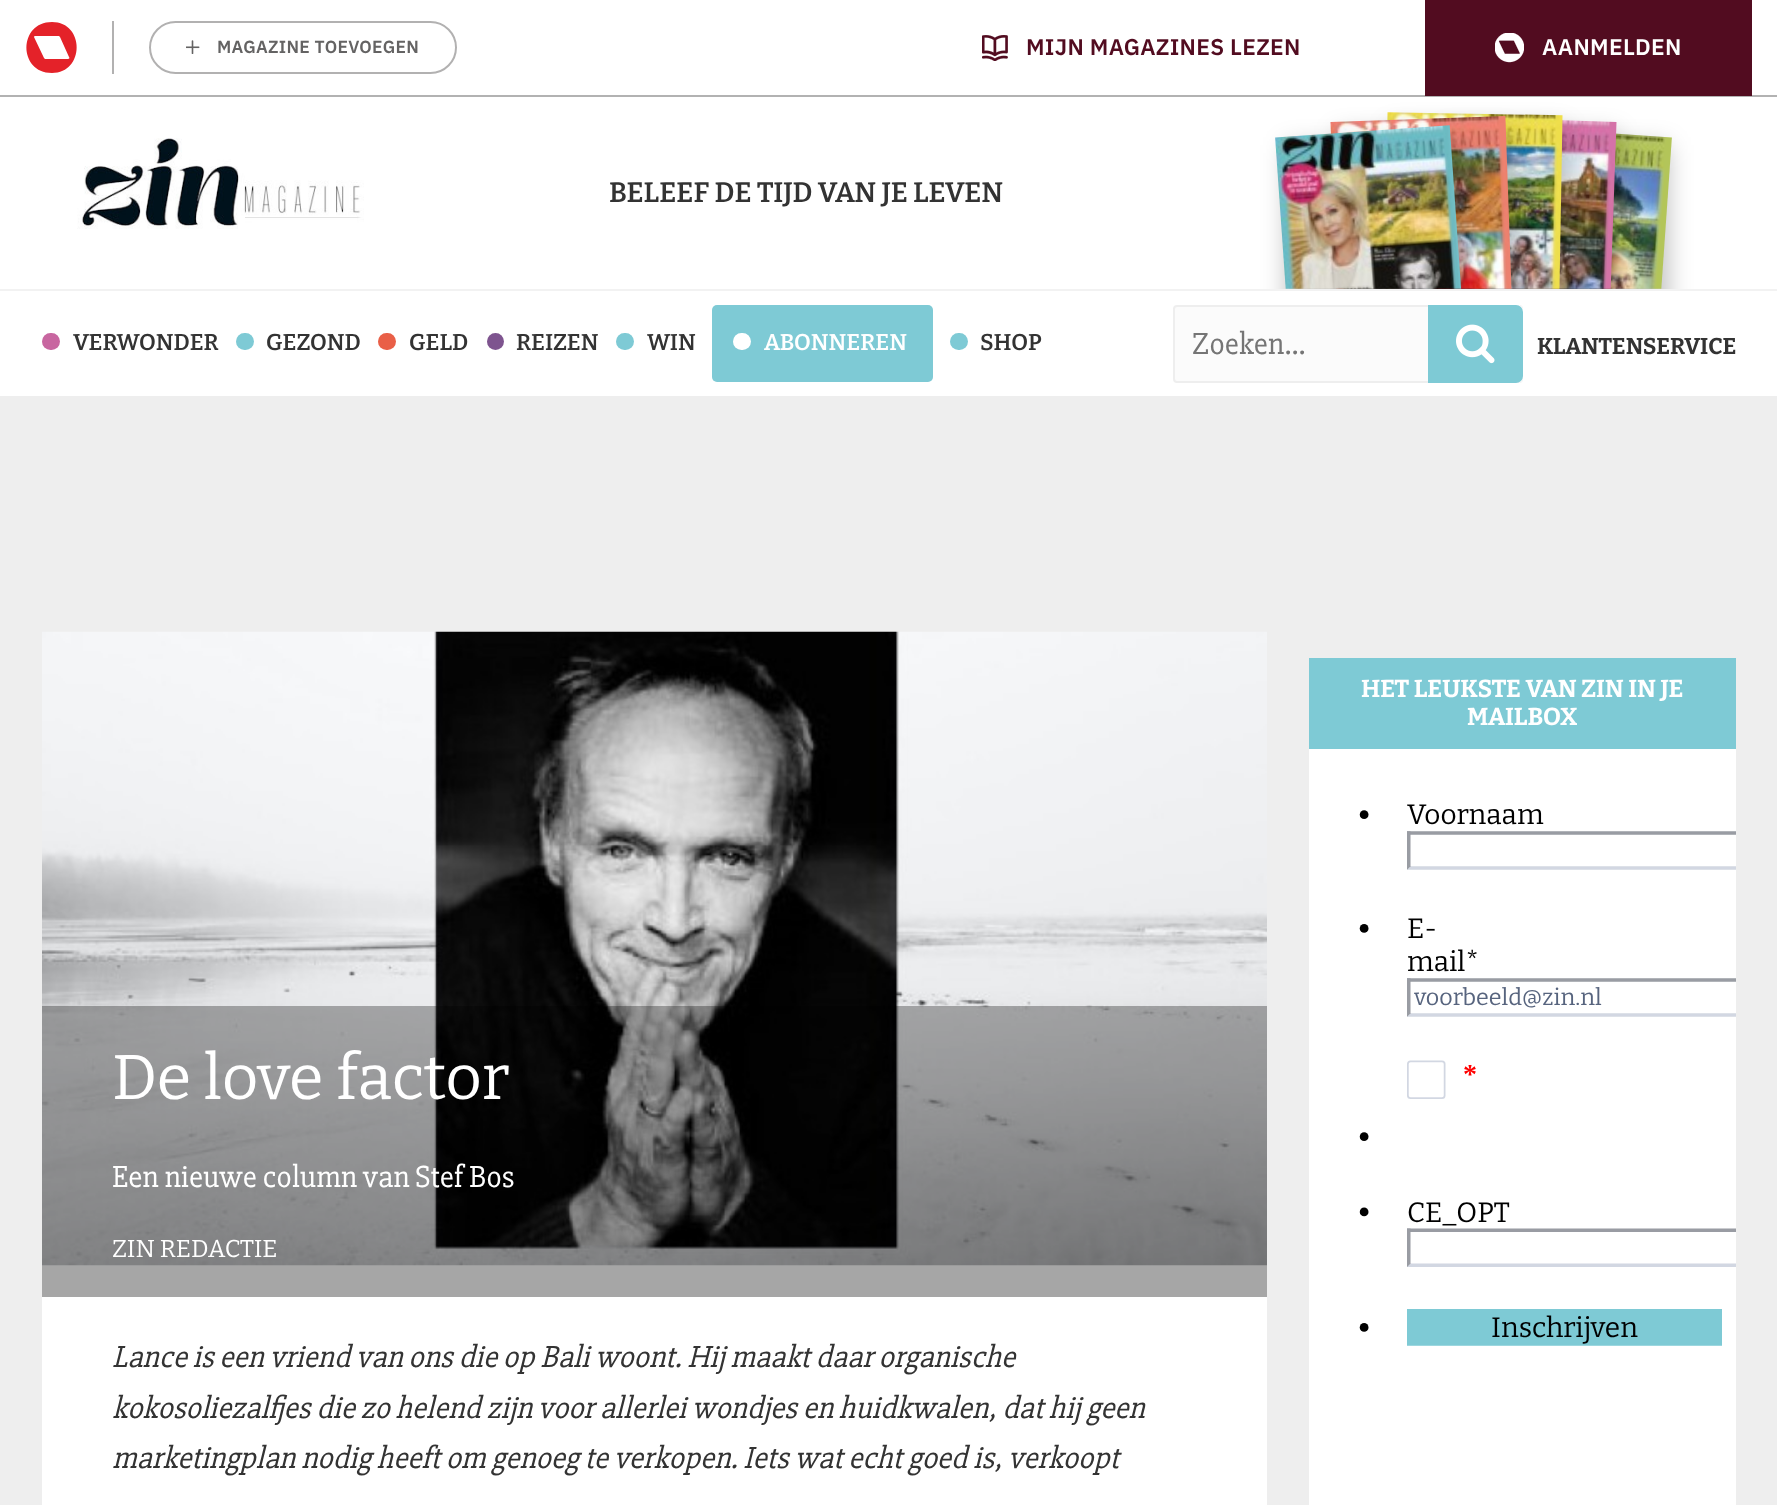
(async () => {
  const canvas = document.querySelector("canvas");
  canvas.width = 1777;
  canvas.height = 1505;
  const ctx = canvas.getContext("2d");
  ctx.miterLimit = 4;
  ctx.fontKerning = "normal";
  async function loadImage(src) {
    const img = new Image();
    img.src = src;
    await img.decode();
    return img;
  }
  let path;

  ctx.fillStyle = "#eeeeee";
  ctx.fillRect(0, 0, 1777, 1505);
  for (const [x, y, w, h, color] of [
    [0, 97, 1777, 192, "#ffffff"],
    [0, 291, 1777, 105, "#ffffff"],
    [0, 289, 1777, 2, "#f2f2f2"],
  ]) {
    ctx.fillStyle = color;
    ctx.fillRect(x, y, w, h);
  }
  ctx.fillStyle = "#fbfbfb";
  ctx.beginPath();
  ctx.roundRect(1174, 306, 348, 76, 3);
  ctx.fill();
  ctx.strokeStyle = "#eeeeee";
  ctx.lineWidth = 2;
  ctx.stroke();
  ctx.save();
  ctx.beginPath();
  ctx.rect(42, 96, 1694, 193);
  ctx.clip();
  ctx.fillStyle = "rgba(0, 0, 0, 0.25)";
  ctx.filter = "blur(12px)";
  ctx.beginPath();
  ctx.rect(1493, 145, 175, 223);
  ctx.fill();
  ctx.filter = "none";
  ctx.restore();
  ctx.drawImage(await loadImage("img/9.png"), 1485, 133, 187, 156);
  ctx.save();
  ctx.beginPath();
  ctx.rect(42, 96, 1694, 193);
  ctx.clip();
  ctx.fillStyle = "rgba(0, 0, 0, 0.25)";
  ctx.filter = "blur(12.5px)";
  ctx.beginPath();
  ctx.rect(1442, 133, 175, 222);
  ctx.fill();
  ctx.filter = "none";
  ctx.restore();
  ctx.drawImage(await loadImage("img/8.png"), 1435, 120, 182, 169);
  ctx.save();
  ctx.beginPath();
  ctx.rect(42, 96, 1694, 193);
  ctx.clip();
  ctx.fillStyle = "rgba(0, 0, 0, 0.25)";
  ctx.filter = "blur(12.5px)";
  ctx.beginPath();
  ctx.rect(1390, 128, 175, 222);
  ctx.fill();
  ctx.filter = "none";
  ctx.restore();
  ctx.drawImage(await loadImage("img/5.png"), 1384, 112, 179, 177);
  ctx.save();
  ctx.beginPath();
  ctx.rect(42, 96, 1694, 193);
  ctx.clip();
  ctx.fillStyle = "rgba(0, 0, 0, 0.25)";
  ctx.filter = "blur(12.5px)";
  ctx.beginPath();
  ctx.rect(1337, 133, 175, 222);
  ctx.fill();
  ctx.filter = "none";
  ctx.restore();
  for (const [x, y, w, h, color] of [
    [0, 0, 1777, 95, "#ffffff"],
    [0, 95, 1777, 2, "#b2b2b2"],
    [112, 21, 2, 53, "#b2b1b1"],
  ]) {
    ctx.fillStyle = color;
    ctx.fillRect(x, y, w, h);
  }
  ctx.fillStyle = "#e42229";
  path = new Path2D("M68 59H45L44 58L34 37C34 37 34 36 35 36H59L60 37L69 57C70 58 69 59 68 59ZM52 22C18 22 18 73 52 73C85 73 85 22 52 22Z");
  ctx.fill(path, "evenodd");
  ctx.beginPath();
  ctx.roundRect(150, 22, 306, 51, 25.5);
  ctx.strokeStyle = "#b2b1b1";
  ctx.stroke();
  ctx.drawImage(await loadImage("img/1.png"), 186, 40, 14, 14);
  ctx.drawImage(await loadImage("img/2.png"), 982, 35, 26, 26);
  ctx.fillStyle = "#520c20";
  ctx.fillRect(1425, 0, 327, 96);
  ctx.drawImage(await loadImage("img/3.png"), 1495, 33, 29, 30);
  ctx.drawImage(await loadImage("img/4.png"), 77, 138, 287, 91);
  ctx.drawImage(await loadImage("img/6.png"), 1330, 116, 182, 173);
  ctx.fillStyle = "#ffffff";
  ctx.beginPath();
  ctx.roundRect(1428, 305, 95, 78, 5);
  ctx.fill();
  ctx.fillStyle = "#7ecad5";
  ctx.beginPath();
  ctx.roundRect(1428, 305, 95, 78, [0, 7, 7, 0]);
  ctx.fill();
  ctx.drawImage(await loadImage("img/10.png"), 1456, 324, 39, 40);
  ctx.save();
  ctx.beginPath();
  ctx.rect(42, 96, 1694, 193);
  ctx.clip();
  ctx.fillStyle = "rgba(0, 0, 0, 0.25)";
  ctx.filter = "blur(12px)";
  ctx.beginPath();
  ctx.rect(1286, 145, 175, 223);
  ctx.fill();
  ctx.filter = "none";
  ctx.restore();
  ctx.drawImage(await loadImage("img/7.png"), 1275, 125, 187, 164);
  ctx.fillStyle = "#c866a0";
  ctx.beginPath();
  ctx.roundRect(42, 333, 18, 17, 8.5);
  ctx.fill();
  ctx.fillStyle = "#7ecad5";
  ctx.beginPath();
  ctx.roundRect(236, 333, 18, 17, 8.5);
  ctx.fill();
  ctx.fillStyle = "#e95f47";
  ctx.beginPath();
  ctx.roundRect(378, 333, 18, 17, 8.5);
  ctx.fill();
  ctx.fillStyle = "#7e548f";
  ctx.beginPath();
  ctx.arc(495.5, 341.5, 8.5, 0, Math.PI * 2);
  ctx.fill();
  ctx.fillStyle = "#7ecad5";
  ctx.beginPath();
  ctx.roundRect(616, 333, 18, 17, 8.5);
  ctx.fill();
  ctx.beginPath();
  ctx.roundRect(712, 305, 221, 77, 5);
  ctx.fill();
  ctx.fillStyle = "#ffffff";
  ctx.beginPath();
  ctx.roundRect(733, 333, 18, 17, 8.5);
  ctx.fill();
  ctx.fillStyle = "#7ecad5";
  ctx.beginPath();
  ctx.roundRect(950, 333, 18, 17, 8.5);
  ctx.fill();
  ctx.fillRect(1309, 658, 427, 91);
  ctx.fillStyle = "#ffffff";
  ctx.fillRect(1309, 749, 427, 756);
  ctx.drawImage(await loadImage("img/11.png"), 1359, 804, 377, 542);
  ctx.drawImage(await loadImage("img/12.png"), 42, 631, 1225, 635);
  ctx.fillStyle = "rgba(0, 0, 0, 0.3)";
  ctx.fillRect(42, 1006, 1225, 291);
  ctx.fillStyle = "#ffffff";
  ctx.fillRect(42, 1297, 1225, 208);
  ctx.letterSpacing = "0.3px";
  ctx.font = "600 17.5px IBM Plex Sans";
  ctx.fillStyle = "#646363";
  ctx.fillText("MAGAZINE TOEVOEGEN", 217, 53);
  ctx.font = "600 22.75px IBM Plex Sans";
  ctx.fillStyle = "#520c20";
  ctx.fillText("MIJN MAGAZINES LEZEN", 1026, 55);
  ctx.fillStyle = "#ffffff";
  ctx.fillText("AANMELDEN", 1542, 55);
  ctx.letterSpacing = "0px";
  ctx.font = "600 28px Bitter";
  ctx.fillStyle = "#333333";
  ctx.fillText("BELEEF DE TIJD VAN JE LEVEN", 609, 202);
  ctx.font = "600 22.75px Bitter";
  for (const [text, x, y] of [
    ["VERWONDER", 73, 350],
    ["GEZOND", 266, 350],
    ["GELD", 409, 350],
    ["REIZEN", 516, 350],
    ["WIN", 647, 350],
  ]) {
    ctx.fillText(text, x, y);
  }
  ctx.fillStyle = "#ffffff";
  ctx.fillText("ABONNEREN", 764, 350);
  ctx.fillStyle = "#333333";
  ctx.fillText("SHOP", 980, 350);
  ctx.font = "31.5px 'Slabo 27px'";
  ctx.fillStyle = "#757575";
  ctx.fillText("Zoeken...", 1192, 354);
  ctx.font = "bold 22.75px Bitter";
  ctx.fillStyle = "#333333";
  ctx.fillText("KLANTENSERVICE", 1537, 354);
  ctx.font = "bold 24.5px Bitter";
  ctx.fillStyle = "#ffffff";
  ctx.fillText("HET LEUKSTE VAN ZIN IN JE", 1361, 697);
  ctx.fillText("MAILBOX", 1467, 725);
  ctx.font = "63px Bitter";
  ctx.fillText("De love factor", 112, 1099);
  ctx.font = "31.5px 'Slabo 27px'";
  ctx.fillText("Een nieuwe column van Stef Bos", 112, 1187);
  ctx.font = "24.5px Bitter";
  ctx.fillText("ZIN REDACTIE", 112, 1257);
  ctx.font = "italic 31.5px 'Slabo 27px'";
  ctx.fillStyle = "#333333";
  for (const [text, x, y] of [
    ["Lance is een vriend van ons die op Bali woont. Hij maakt daar organische", 112, 1367],
    ["kokosoliezalfjes die zo helend zijn voor allerlei wondjes en huidkwalen, dat hij geen", 112, 1418],
    ["marketingplan nodig heeft om genoeg te verkopen. Iets wat echt goed is, verkoopt", 112, 1468],
  ]) {
    ctx.fillText(text, x, y);
  }
})();
